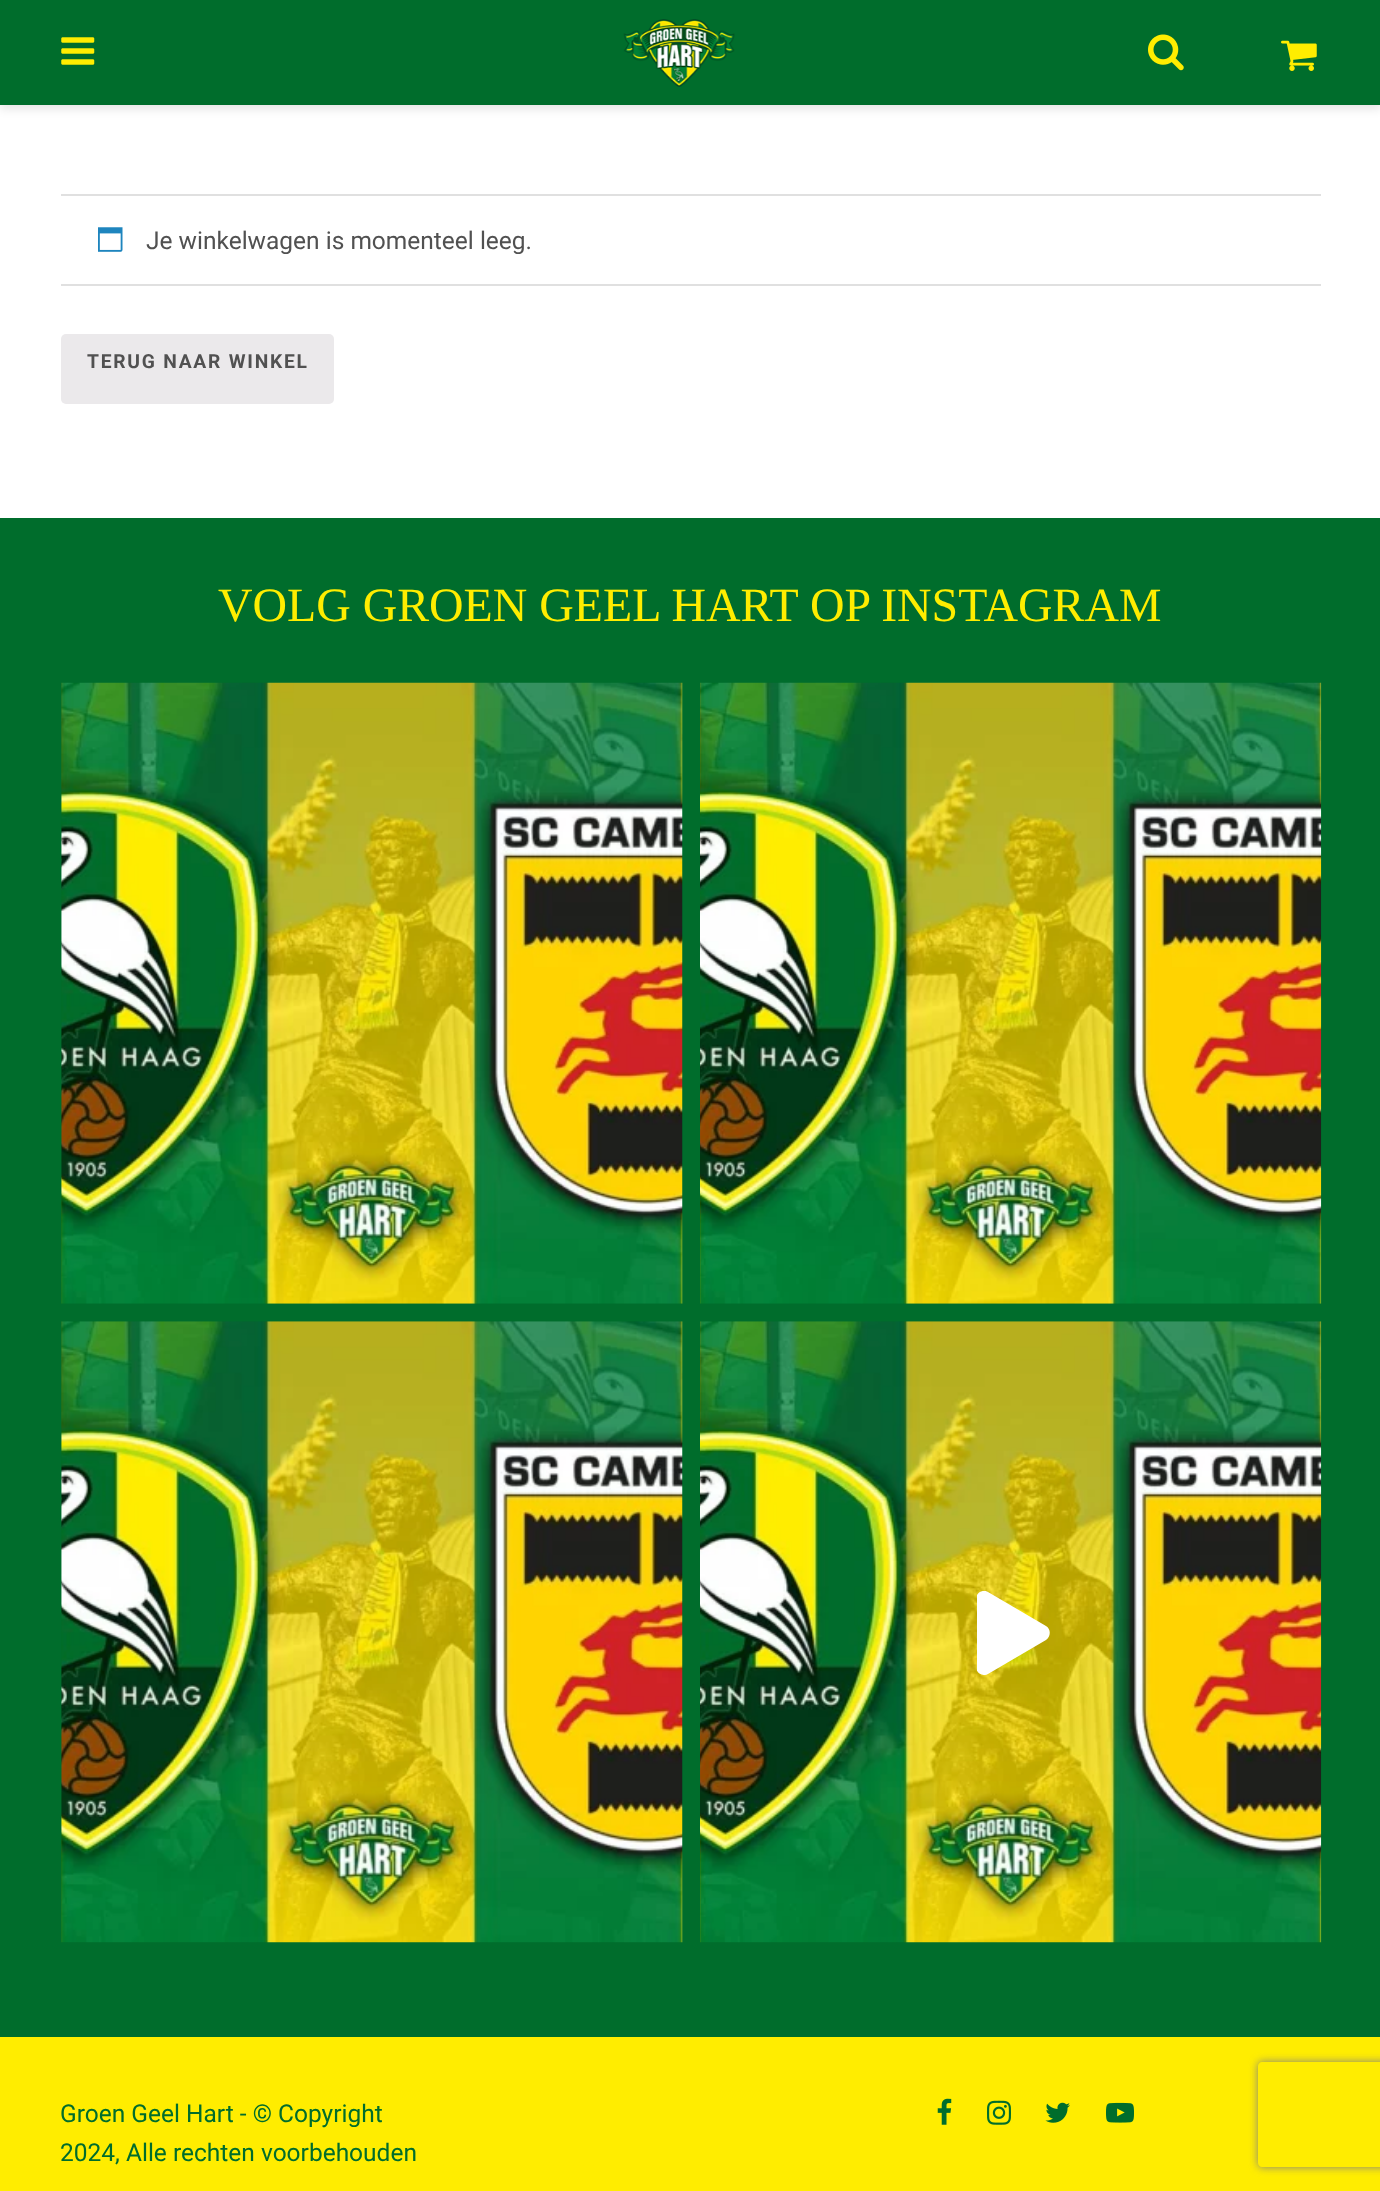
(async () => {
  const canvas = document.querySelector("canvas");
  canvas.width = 1380;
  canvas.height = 2191;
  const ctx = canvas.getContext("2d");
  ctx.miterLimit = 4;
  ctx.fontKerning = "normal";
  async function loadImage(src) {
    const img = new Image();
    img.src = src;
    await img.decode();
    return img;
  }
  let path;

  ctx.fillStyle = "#ffffff";
  ctx.fillRect(0, 0, 1380, 2191);
  ctx.fillStyle = "rgba(0, 0, 0, 0.1)";
  ctx.filter = "blur(5px)";
  ctx.beginPath();
  ctx.rect(0, 4, 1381, 105);
  ctx.fill();
  ctx.filter = "none";
  ctx.fillStyle = "#006d2c";
  ctx.fillRect(0, 0, 1380, 105);
  ctx.drawImage(await loadImage("img/1.png"), 61, 37, 34, 28);
  ctx.drawImage(await loadImage("img/2.png"), 623, 19, 112, 68);
  ctx.drawImage(await loadImage("img/3.png"), 1148, 34, 36, 37);
  ctx.drawImage(await loadImage("img/4.png"), 1281, 40, 36, 31);
  ctx.fillStyle = "#e0e0e0";
  ctx.fillRect(61, 194, 1260, 2);
  ctx.fillRect(61, 284, 1260, 2);
  ctx.drawImage(await loadImage("img/5.png"), 98, 227, 25, 25);
  ctx.fillStyle = "#ebe9eb";
  ctx.beginPath();
  ctx.roundRect(61, 334, 273, 70, 5);
  ctx.fill();
  ctx.fillStyle = "#006d2c";
  ctx.fillRect(0, 518, 1380, 1519);
  ctx.drawImage(await loadImage("img/6.png"), 61, 682, 622, 622);
  ctx.drawImage(await loadImage("img/7.png"), 700, 682, 622, 622);
  ctx.drawImage(await loadImage("img/8.png"), 61, 1321, 622, 622);
  ctx.drawImage(await loadImage("img/9.png"), 700, 1321, 622, 622);
  ctx.save();
  ctx.beginPath();
  ctx.rect(977, 1591, 73, 84);
  ctx.clip();
  ctx.fillStyle = "#ffffff";
  path = new Path2D("M1046 1626L988 1592C984 1589 976 1592 976 1599V1667C976 1673 983 1677 988 1674L1046 1640C1051 1636 1051 1629 1046 1626Z");
  ctx.fill(path);
  ctx.restore();
  ctx.fillStyle = "#ffed00";
  ctx.fillRect(0, 2037, 1380, 154);
  ctx.drawImage(await loadImage("img/10.png"), 937, 2098, 15, 27);
  ctx.drawImage(await loadImage("img/11.png"), 987, 2100, 24, 25);
  ctx.drawImage(await loadImage("img/12.png"), 1045, 2102, 25, 21);
  ctx.drawImage(await loadImage("img/13.png"), 1106, 2102, 28, 21);
  ctx.save();
  path = new Path2D("M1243 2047H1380V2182H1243ZM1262 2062H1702C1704 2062 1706 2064 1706 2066V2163C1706 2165 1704 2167 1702 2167H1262C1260 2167 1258 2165 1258 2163V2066C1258 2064 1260 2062 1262 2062Z");
  ctx.clip(path, "evenodd");
  ctx.fillStyle = "#808080";
  ctx.filter = "blur(4.5px)";
  ctx.beginPath();
  ctx.roundRect(1258, 2062, 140, 105, 4);
  ctx.fill();
  ctx.filter = "none";
  ctx.restore();
  ctx.font = "24.5px Roboto";
  ctx.fillStyle = "#515151";
  ctx.fillText("Je winkelwagen is momenteel leeg.", 146, 249);
  ctx.letterSpacing = "1.75px";
  ctx.font = "bold 19.25px Roboto";
  ctx.fillText("TERUG NAAR WINKEL", 87, 368);
  ctx.letterSpacing = "0px";
  ctx.font = "47.8px Liberation Serif";
  ctx.fillStyle = "#ffed00";
  ctx.fillText("VOLG GROEN GEEL HART OP INSTAGRAM", 218, 621);
  ctx.font = "24.5px Roboto";
  ctx.fillStyle = "#006d2c";
  ctx.fillText("Groen Geel Hart - © Copyright", 60, 2122);
  ctx.fillText("2024, Alle rechten voorbehouden", 60, 2161);
})();
